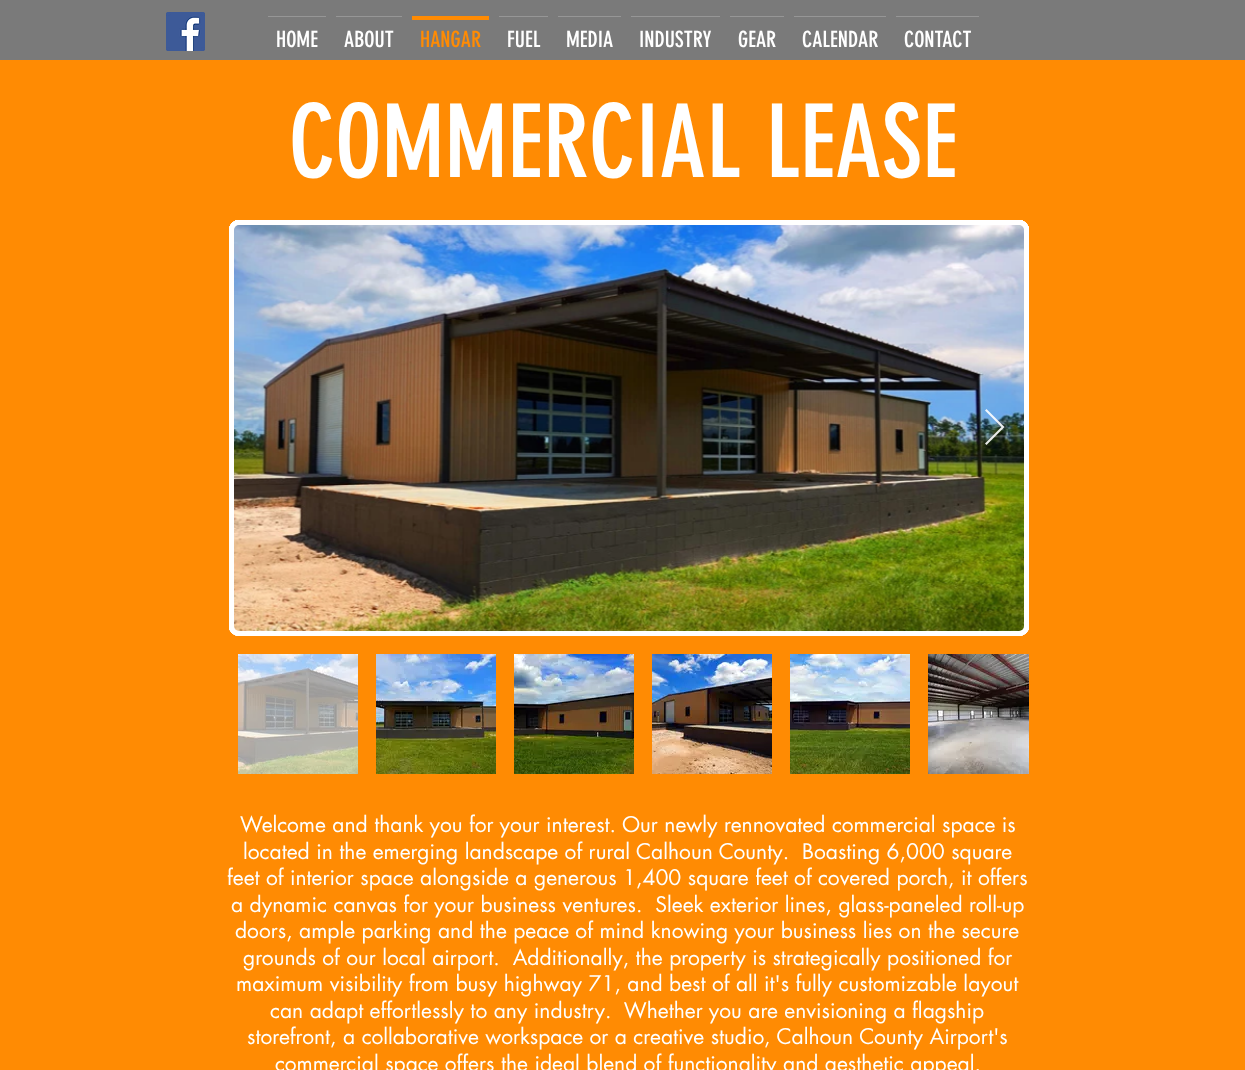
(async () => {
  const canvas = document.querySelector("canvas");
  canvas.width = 1245;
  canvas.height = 1070;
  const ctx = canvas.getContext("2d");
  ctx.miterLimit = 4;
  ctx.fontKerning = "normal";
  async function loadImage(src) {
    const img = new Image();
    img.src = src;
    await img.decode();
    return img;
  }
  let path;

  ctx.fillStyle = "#ff8b03";
  ctx.fillRect(0, 0, 1245, 1070);
  ctx.fillStyle = "#7a7a7a";
  ctx.fillRect(0, 0, 1245, 60);
  ctx.drawImage(await loadImage("img/1.png"), 166, 12, 39, 39);
  for (const [x, y, w, h, color] of [
    [268, 16, 58, 1, "#969696"],
    [336, 16, 66, 1, "#969696"],
    [412, 16, 77, 4, "#ff8b03"],
    [499, 16, 49, 1, "#969696"],
    [558, 16, 63, 1, "#969696"],
    [631, 16, 89, 1, "#969696"],
    [730, 16, 54, 1, "#969696"],
    [794, 16, 92, 1, "#969696"],
    [896, 16, 83, 1, "#969696"],
  ]) {
    ctx.fillStyle = color;
    ctx.fillRect(x, y, w, h);
  }
  ctx.beginPath();
  ctx.roundRect(231.5, 222.5, 795, 411, 7.5);
  ctx.strokeStyle = "#ffffff";
  ctx.lineWidth = 5;
  ctx.stroke();
  ctx.beginPath();
  ctx.roundRect(231.5, 222.5, 795, 411, 7.5);
  ctx.stroke();
  ctx.beginPath();
  ctx.roundRect(231.5, 222.5, 795, 411, 7.5);
  ctx.stroke();
  ctx.beginPath();
  ctx.roundRect(231.5, 222.5, 795, 411, 7.5);
  ctx.stroke();
  ctx.beginPath();
  ctx.roundRect(231.5, 222.5, 795, 411, 7.5);
  ctx.stroke();
  ctx.beginPath();
  ctx.roundRect(231.5, 222.5, 795, 411, 7.5);
  ctx.stroke();
  ctx.beginPath();
  ctx.roundRect(231.5, 222.5, 795, 411, 7.5);
  ctx.stroke();
  ctx.beginPath();
  ctx.roundRect(231.5, 222.5, 795, 411, 7.5);
  ctx.stroke();
  ctx.beginPath();
  ctx.roundRect(231.5, 222.5, 795, 411, 7.5);
  ctx.stroke();
  ctx.beginPath();
  ctx.roundRect(231.5, 222.5, 795, 411, 7.5);
  ctx.stroke();
  ctx.beginPath();
  ctx.roundRect(231.5, 222.5, 795, 411, 7.5);
  ctx.stroke();
  ctx.drawImage(await loadImage("img/2.png"), 234, 225, 790, 406);
  ctx.fillStyle = "rgba(255, 255, 255, 0.9)";
  path = new Path2D("M985 410.5L986.5 409L1004.5 427L986.5 445L985 443.5L1001.5 427Z");
  ctx.fill(path);
  ctx.drawImage(await loadImage("img/3.png"), 238, 654, 120, 120);
  ctx.drawImage(await loadImage("img/4.png"), 376, 654, 120, 120);
  ctx.drawImage(await loadImage("img/5.png"), 514, 654, 120, 120);
  ctx.drawImage(await loadImage("img/6.png"), 652, 654, 120, 120);
  ctx.drawImage(await loadImage("img/7.png"), 790, 654, 120, 120);
  ctx.drawImage(await loadImage("img/8.png"), 928, 654, 101, 120);
  ctx.font = "22px 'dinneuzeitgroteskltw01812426'";
  ctx.fillStyle = "#ffffff";
  ctx.fillText("HOME", 276, 47);
  ctx.fillText("ABOUT", 344, 47);
  ctx.fillStyle = "#ff8b03";
  ctx.fillText("HANGAR", 420, 47);
  ctx.fillStyle = "#ffffff";
  for (const [text, x, y] of [
    ["FUEL", 507, 47],
    ["MEDIA", 566, 47],
    ["INDUSTRY", 639, 47],
    ["GEAR", 738, 47],
    ["CALENDAR", 802, 47],
    ["CONTACT", 904, 47],
  ]) {
    ctx.fillText(text, x, y);
  }
  ctx.font = "100px 'dinneuzeitgroteskltw01812426'";
  ctx.fillText("COMMERCIAL LEASE", 289, 177);
  ctx.font = "21px futura";
  for (const [text, x, y] of [
    ["Welcome and thank you for your interest. Our newly rennovated commercial space is", 240, 832],
    ["located in the emerging landscape of rural Calhoun County.  Boasting 6,000 square", 243, 859],
    ["feet of interior space alongside a generous 1,400 square feet of covered porch, it offers", 227, 885],
    ["a dynamic canvas for your business ventures.  Sleek exterior lines, glass-paneled roll-up", 231, 912],
    ["doors, ample parking and the peace of mind knowing your business lies on the secure", 235, 938],
    ["grounds of our local airport.  Additionally, the property is strategically positioned for", 243, 965],
    ["maximum visibility from busy highway 71, and best of all it's fully customizable layout", 236, 991],
    ["can adapt effortlessly to any industry.  Whether you are envisioning a flagship", 270, 1018],
    ["storefront, a collaborative workspace or a creative studio, Calhoun County Airport's", 247, 1044],
    ["commercial space offers the ideal blend of functionality and aesthetic appeal.", 275, 1071],
  ]) {
    ctx.fillText(text, x, y);
  }
})();
